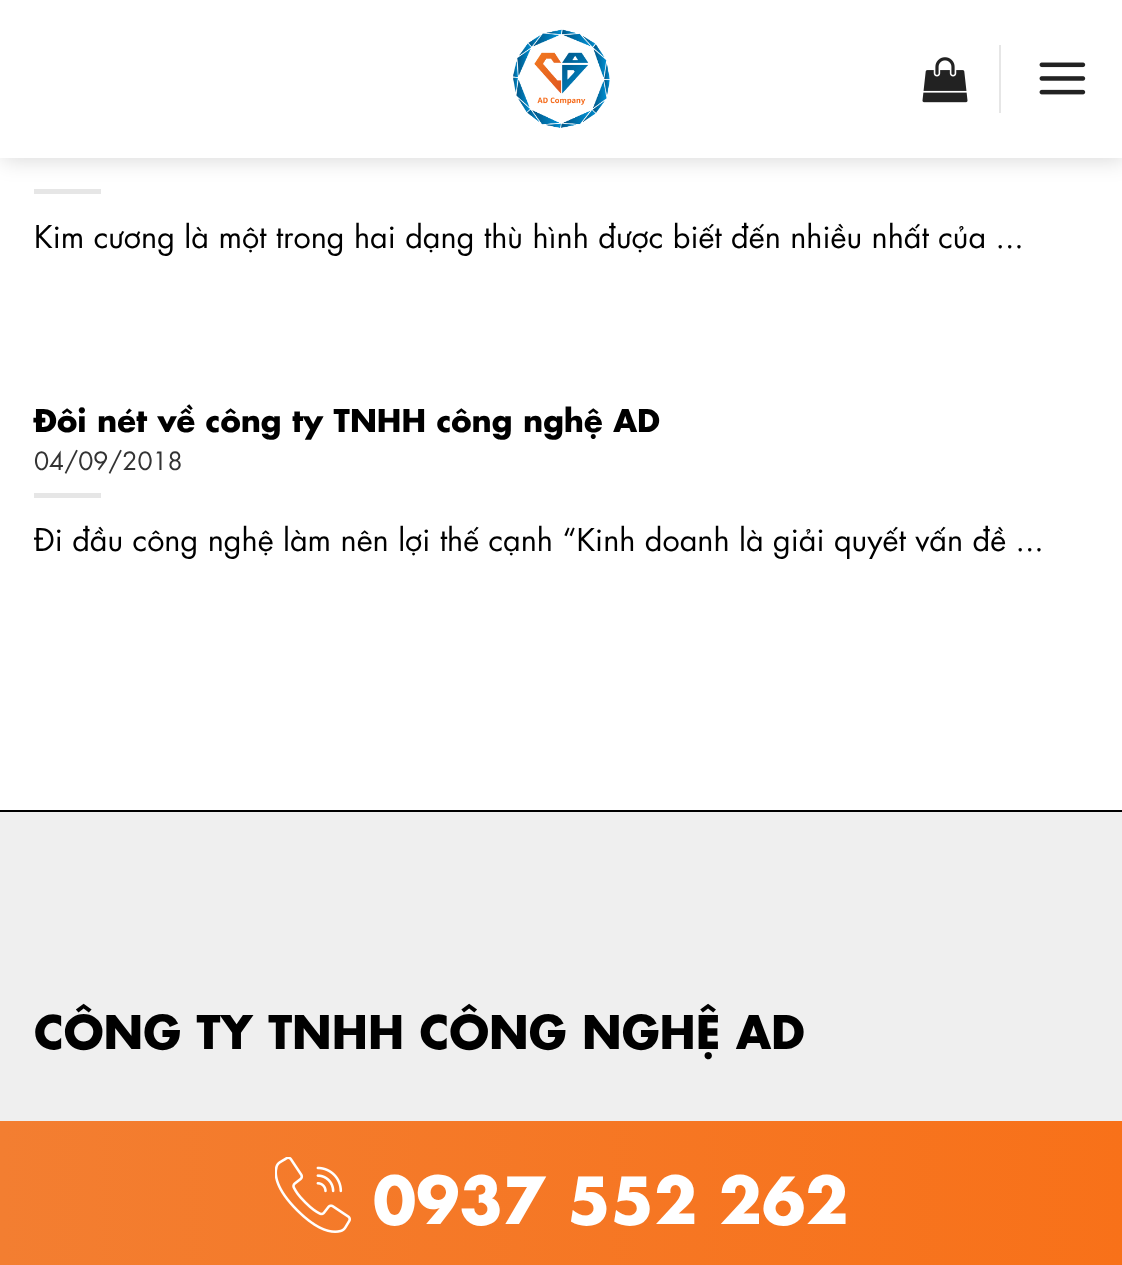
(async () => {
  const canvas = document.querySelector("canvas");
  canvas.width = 1122;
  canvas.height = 1265;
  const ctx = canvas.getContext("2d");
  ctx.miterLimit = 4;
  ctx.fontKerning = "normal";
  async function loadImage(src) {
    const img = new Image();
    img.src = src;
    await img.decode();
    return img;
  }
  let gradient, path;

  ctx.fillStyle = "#ffffff";
  ctx.fillRect(0, 0, 1122, 1265);
  ctx.fillStyle = "#e6e6e6";
  ctx.fillRect(34, 189, 67, 5);
  ctx.save();
  path = new Path2D("M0 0H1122V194H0ZM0 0H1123V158H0Z");
  ctx.clip(path, "evenodd");
  ctx.fillStyle = "rgba(0, 0, 0, 0.15)";
  ctx.filter = "blur(11px)";
  ctx.beginPath();
  ctx.rect(2, 2, 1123, 158);
  ctx.fill();
  ctx.filter = "none";
  ctx.restore();
  ctx.drawImage(await loadImage("img/1.png"), 513, 29, 97, 99);
  ctx.drawImage(await loadImage("img/2.png"), 922, 57, 46, 46);
  ctx.fillRect(999, 45, 2, 68);
  ctx.drawImage(await loadImage("img/3.png"), 1039, 62, 47, 33);
  for (const [x, y, w, h, color] of [
    [0, 157, 1122, 1, "rgba(255, 255, 255, 0.9)"],
    [34, 493, 67, 5, "#e6e6e6"],
    [0, 810, 1122, 2, "#000000"],
    [0, 812, 1122, 309, "#efefef"],
  ]) {
    ctx.fillStyle = color;
    ctx.fillRect(x, y, w, h);
  }
  gradient = ctx.createLinearGradient(0, 1194, 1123, 1194);
  gradient.addColorStop(0, "#f37e31");
  gradient.addColorStop(1, "#f87119");
  ctx.fillStyle = gradient;
  ctx.fillRect(0, 1121, 1122, 144);
  ctx.drawImage(await loadImage("img/4.png"), 275, 1157, 76, 76);
  ctx.font = "30.6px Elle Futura";
  ctx.fillStyle = "#000000";
  ctx.fillText("Kim cương là một trong hai dạng thù hình được biết đến nhiều nhất của ...", 34, 248);
  ctx.font = "bold 30.6px Elle Futura";
  ctx.fillText("Đôi nét về công ty TNHH công nghệ AD", 34, 432);
  ctx.font = "24.5px Elle Futura";
  ctx.fillStyle = "#333333";
  ctx.fillText("04/09/2018", 34, 470);
  ctx.font = "30.6px Elle Futura";
  ctx.fillStyle = "#000000";
  ctx.fillText("Đi đầu công nghệ làm nên lợi thế cạnh “Kinh doanh là giải quyết vấn đề ...", 34, 551);
  ctx.font = "bold 45px Elle Futura";
  ctx.fillText("CÔNG TY TNHH CÔNG NGHỆ AD", 34, 1049);
  ctx.font = "bold 63px Elle Futura";
  ctx.fillStyle = "#ffffff";
  ctx.fillText("0937 552 262", 373, 1224);
})();
